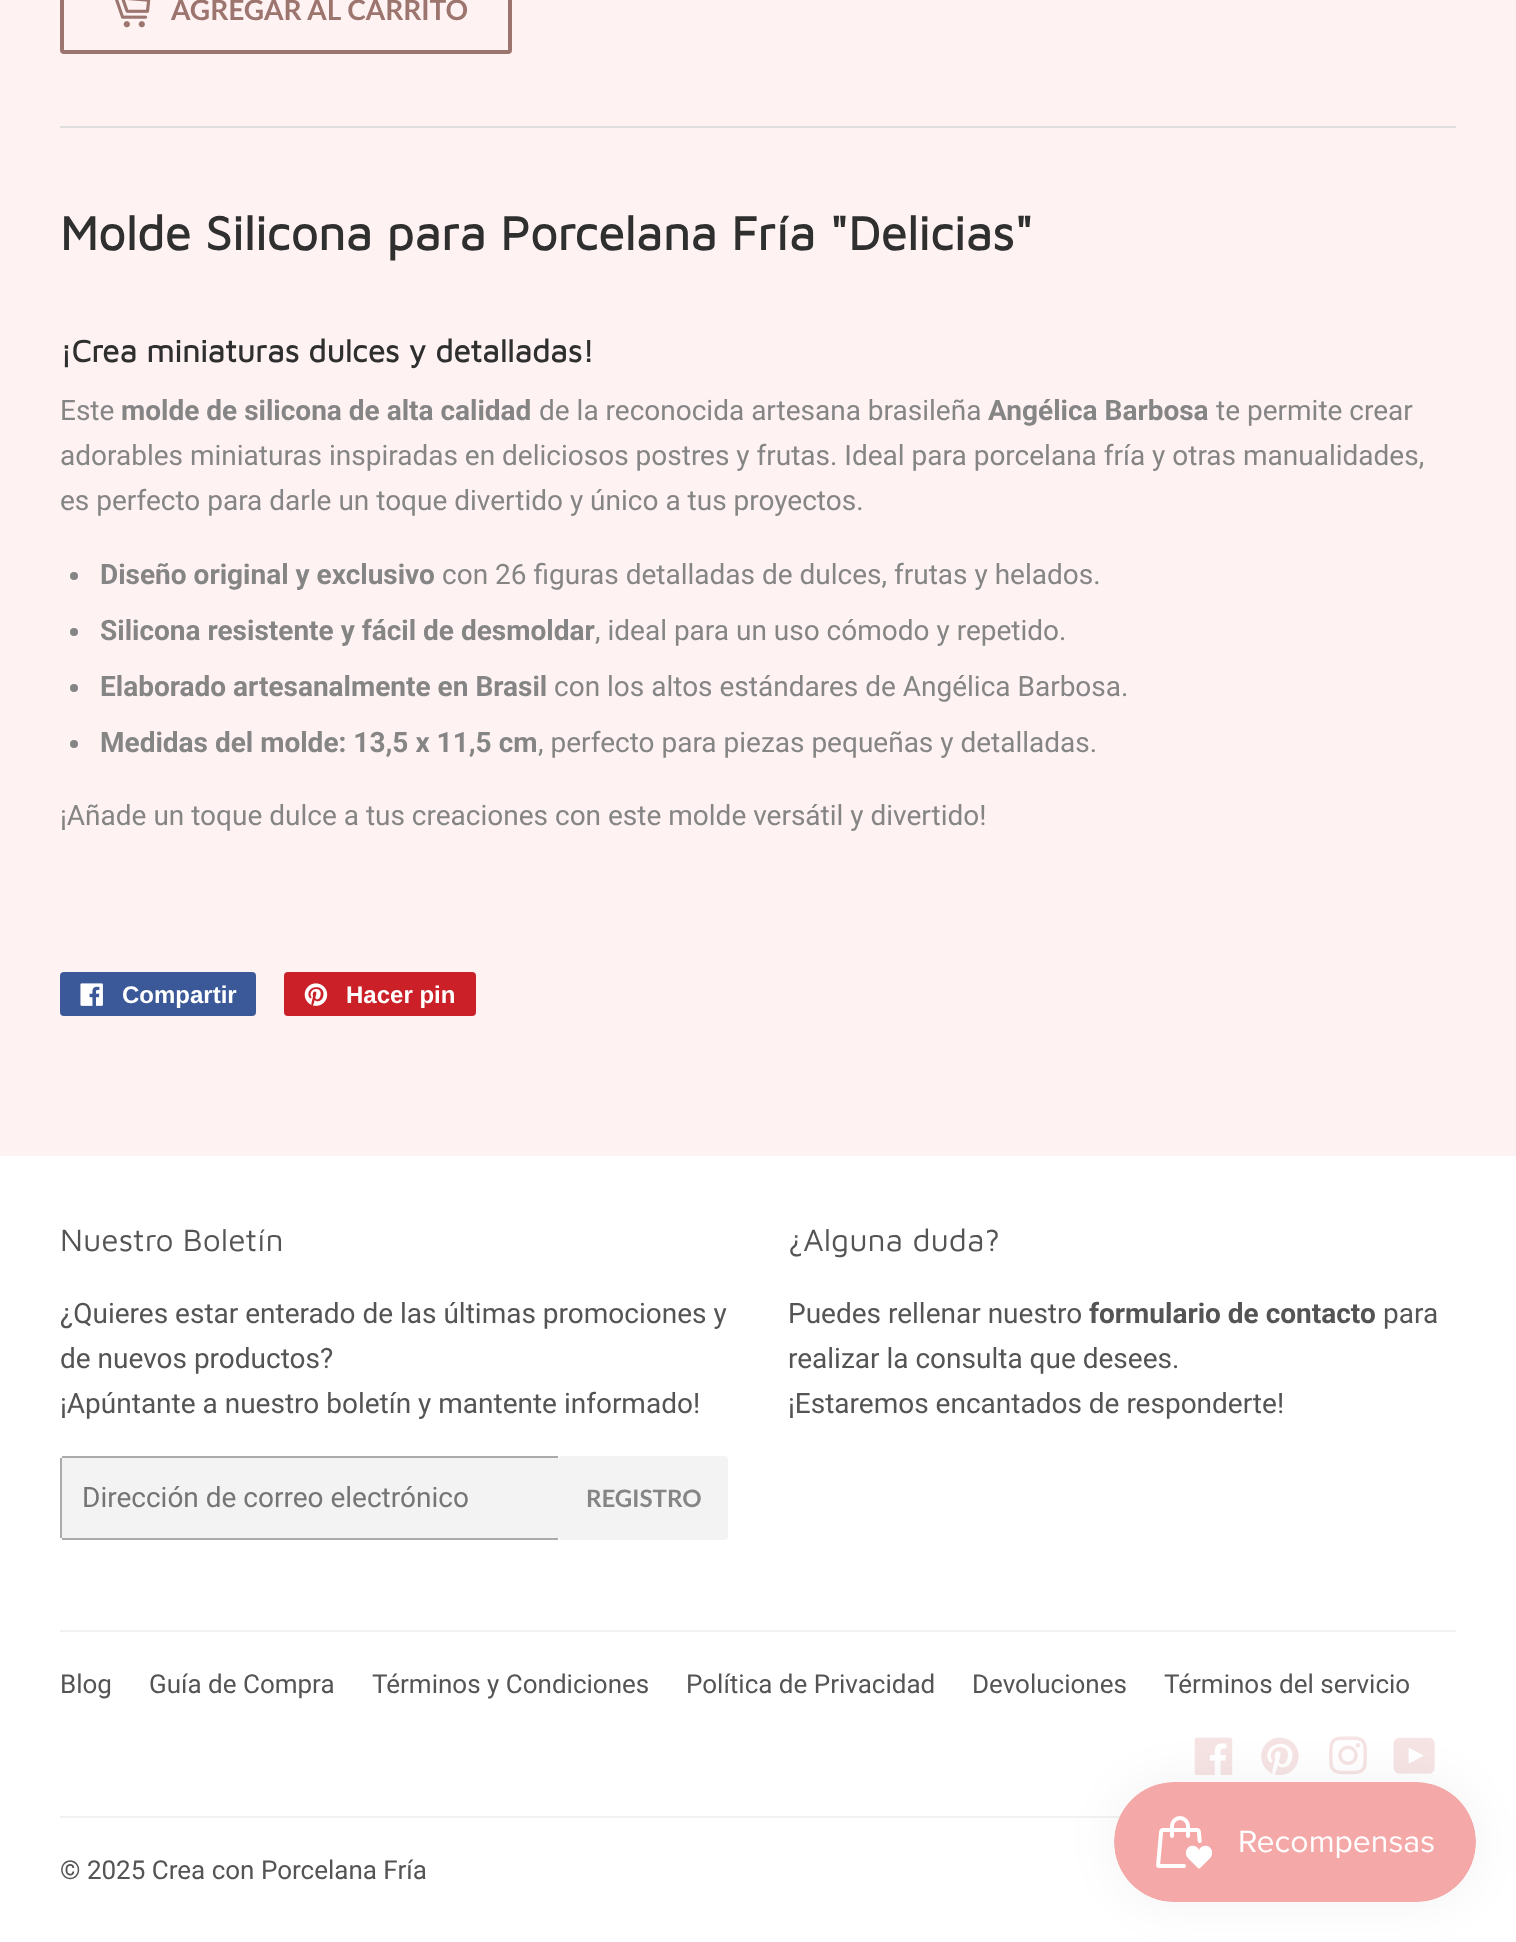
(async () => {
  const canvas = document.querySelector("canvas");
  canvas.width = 1516;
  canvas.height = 1942;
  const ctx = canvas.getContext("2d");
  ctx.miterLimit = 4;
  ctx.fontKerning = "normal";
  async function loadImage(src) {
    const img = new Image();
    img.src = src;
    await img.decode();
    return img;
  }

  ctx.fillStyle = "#fff2f2";
  ctx.fillRect(0, 0, 1516, 1942);
  ctx.beginPath();
  ctx.roundRect(62, -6, 448, 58, 2);
  ctx.strokeStyle = "#9c756f";
  ctx.lineWidth = 4;
  ctx.stroke();
  ctx.drawImage(await loadImage("img/1.png"), 115, 0, 36, 28);
  ctx.fillStyle = "#dedede";
  ctx.fillRect(60, 126, 1396, 2);
  ctx.fillStyle = "#858585";
  ctx.beginPath();
  ctx.arc(74, 576, 4, 0, Math.PI * 2);
  ctx.fill();
  ctx.beginPath();
  ctx.arc(74, 632, 4, 0, Math.PI * 2);
  ctx.fill();
  ctx.beginPath();
  ctx.arc(74, 688, 4, 0, Math.PI * 2);
  ctx.fill();
  ctx.beginPath();
  ctx.arc(74, 744, 4, 0, Math.PI * 2);
  ctx.fill();
  ctx.fillStyle = "#3b5998";
  ctx.beginPath();
  ctx.roundRect(60, 972, 196, 44, 4);
  ctx.fill();
  ctx.drawImage(await loadImage("img/2.png"), 80, 983, 23, 23);
  ctx.fillStyle = "#cb2027";
  ctx.beginPath();
  ctx.roundRect(284, 972, 192, 44, 4);
  ctx.fill();
  ctx.drawImage(await loadImage("img/3.png"), 304, 983, 24, 23);
  ctx.fillStyle = "#ffffff";
  ctx.fillRect(0, 1156, 1516, 786);
  ctx.fillStyle = "#f3f3f3";
  ctx.beginPath();
  ctx.roundRect(60, 1456, 500, 84, 4);
  ctx.fill();
  for (const [x, y, w, h, color] of [
    [62, 1456, 496, 2, "#ababab"],
    [62, 1538, 496, 2, "#ababab"],
    [60, 1458, 2, 80, "#ababab"],
  ]) {
    ctx.fillStyle = color;
    ctx.fillRect(x, y, w, h);
  }
  ctx.fillStyle = "#f3f3f3";
  ctx.beginPath();
  ctx.roundRect(560, 1456, 168, 84, [0, 4, 4, 0]);
  ctx.fill();
  ctx.fillStyle = "#f2f2f2";
  ctx.fillRect(60, 1630, 1396, 2);
  ctx.drawImage(await loadImage("img/4.png"), 1194, 1737, 39, 38);
  ctx.drawImage(await loadImage("img/5.png"), 1261, 1737, 38, 38);
  ctx.drawImage(await loadImage("img/6.png"), 1329, 1736, 38, 39);
  ctx.drawImage(await loadImage("img/7.png"), 1393, 1737, 42, 37);
  ctx.fillRect(60, 1816, 1060, 2);
  ctx.fillStyle = "rgba(0, 0, 0, 0.05)";
  ctx.filter = "blur(25px)";
  ctx.beginPath();
  ctx.roundRect(1114, 1782, 362, 120, 60);
  ctx.fill();
  ctx.filter = "none";
  ctx.drawImage(await loadImage("img/8.png"), 1114, 1782, 362, 120);
  ctx.font = "bold 28px Lato";
  ctx.fillStyle = "#9c756f";
  ctx.fillText("AGREGAR AL CARRITO", 171, 20);
  ctx.font = "bold 48.5px Maven Pro";
  ctx.fillStyle = "#2f2f2f";
  ctx.fillText("Molde Silicona para Porcelana Fría \"Delicias\"", 60, 250);
  ctx.font = "bold 31.75px Maven Pro";
  ctx.fillText("¡Crea miniaturas dulces y detalladas!", 60, 362);
  ctx.font = "28px Roboto";
  ctx.fillStyle = "#858585";
  ctx.fillText("Este", 60, 420);
  ctx.font = "bold 28px Roboto";
  ctx.fillText("molde de silicona de alta calidad", 121, 420);
  ctx.font = "28px Roboto";
  ctx.fillText("de la reconocida artesana brasileña", 539, 420);
  ctx.font = "bold 28px Roboto";
  ctx.fillText("Angélica Barbosa", 988, 420);
  ctx.font = "28px Roboto";
  for (const [text, x, y] of [
    ["te permite crear", 1216, 420],
    ["adorables miniaturas inspiradas en deliciosos postres y frutas. Ideal para porcelana fría y otras manualidades,", 60, 465],
    ["es perfecto para darle un toque divertido y único a tus proyectos.", 60, 510],
  ]) {
    ctx.fillText(text, x, y);
  }
  ctx.font = "bold 28px Roboto";
  ctx.fillText("Diseño original y exclusivo", 100, 584);
  ctx.font = "28px Roboto";
  ctx.fillText("con 26 figuras detalladas de dulces, frutas y helados.", 442, 584);
  ctx.font = "bold 28px Roboto";
  ctx.fillText("Silicona resistente y fácil de desmoldar", 100, 640);
  ctx.font = "28px Roboto";
  ctx.fillText(", ideal para un uso cómodo y repetido.", 595, 640);
  ctx.font = "bold 28px Roboto";
  ctx.fillText("Elaborado artesanalmente en Brasil", 100, 696);
  ctx.font = "28px Roboto";
  ctx.fillText("con los altos estándares de Angélica Barbosa.", 554, 696);
  ctx.font = "bold 28px Roboto";
  ctx.fillText("Medidas del molde: 13,5 x 11,5 cm", 100, 752);
  ctx.font = "28px Roboto";
  ctx.fillText(", perfecto para piezas pequeñas y detalladas.", 538, 752);
  ctx.fillText("¡Añade un toque dulce a tus creaciones con este molde versátil y divertido!", 60, 825);
  ctx.font = "bold 24px Liberation Sans";
  ctx.fillStyle = "#ffffff";
  ctx.fillText("Compartir", 122, 1003);
  ctx.fillText("Hacer pin", 346, 1003);
  ctx.font = "31.75px Maven Pro";
  ctx.fillStyle = "#545454";
  ctx.fillText("Nuestro Boletín", 60, 1251);
  ctx.font = "28px Roboto";
  for (const [text, x, y] of [
    ["¿Quieres estar enterado de las últimas promociones y", 60, 1323],
    ["de nuevos productos?", 60, 1368],
    ["¡Apúntante a nuestro boletín y mantente informado!", 60, 1413],
  ]) {
    ctx.fillText(text, x, y);
  }
  ctx.fillStyle = "#757575";
  ctx.fillText("Dirección de correo electrónico", 82, 1507);
  ctx.font = "bold 24px Lato";
  ctx.fillStyle = "#858585";
  ctx.fillText("REGISTRO", 586, 1507);
  ctx.font = "31.75px Maven Pro";
  ctx.fillStyle = "#545454";
  ctx.fillText("¿Alguna duda?", 788, 1251);
  ctx.font = "28px Roboto";
  ctx.fillText("Puedes rellenar nuestro", 788, 1323);
  ctx.font = "bold 28px Roboto";
  ctx.fillText("formulario de contacto", 1089, 1323);
  ctx.font = "28px Roboto";
  for (const [text, x, y] of [
    ["para", 1383, 1323],
    ["realizar la consulta que desees.", 788, 1368],
    ["¡Estaremos encantados de responderte!", 788, 1413],
  ]) {
    ctx.fillText(text, x, y);
  }
  ctx.font = "26px Roboto";
  for (const [text, x, y] of [
    ["Blog", 60, 1693],
    ["Guía de Compra", 149, 1693],
    ["Términos y Condiciones", 372, 1693],
    ["Política de Privacidad", 686, 1693],
    ["Devoluciones", 972, 1693],
    ["Términos del servicio", 1164, 1693],
    ["© 2025 Crea con Porcelana Fría", 60, 1879],
  ]) {
    ctx.fillText(text, x, y);
  }
})();
